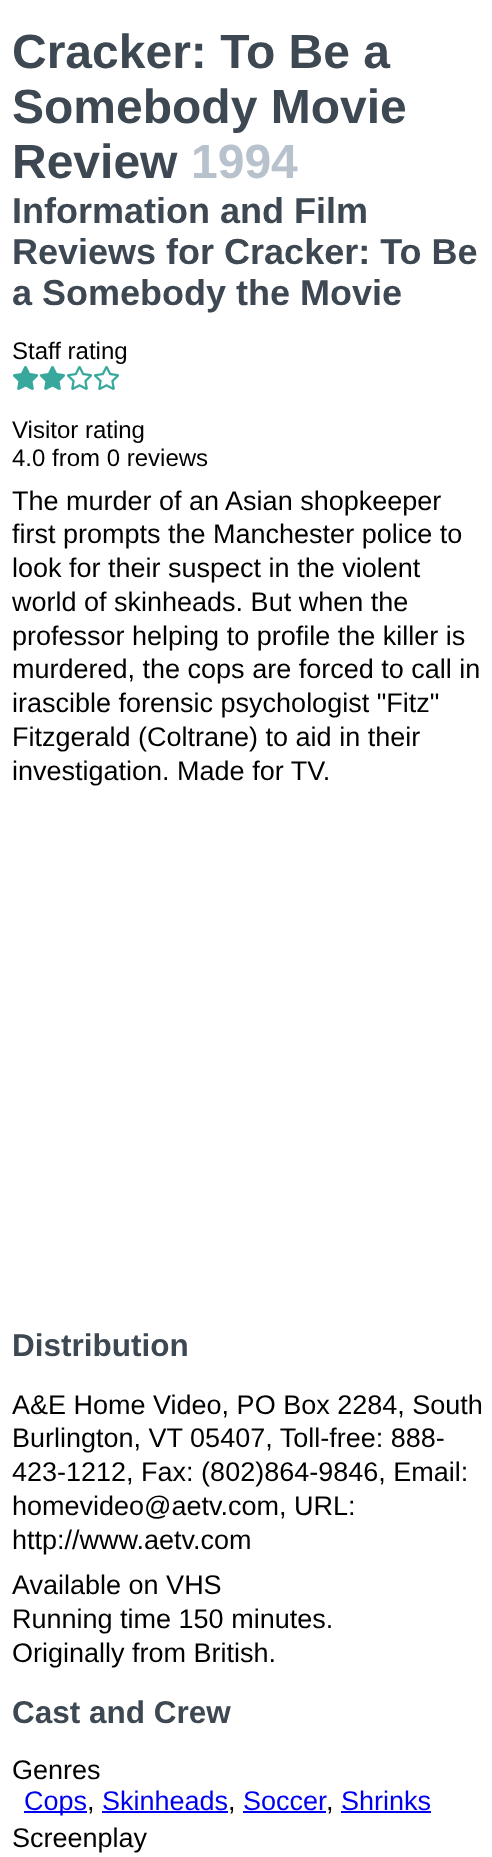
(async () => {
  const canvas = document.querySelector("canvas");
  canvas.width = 492;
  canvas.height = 1857;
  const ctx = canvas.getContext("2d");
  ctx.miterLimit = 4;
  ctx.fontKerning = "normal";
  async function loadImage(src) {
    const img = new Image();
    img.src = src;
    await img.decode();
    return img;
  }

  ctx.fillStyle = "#ffffff";
  ctx.fillRect(0, 0, 492, 1857);
  ctx.drawImage(await loadImage("img/1.png"), 13, 366, 25, 24);
  ctx.drawImage(await loadImage("img/1.png"), 40, 366, 25, 24);
  ctx.drawImage(await loadImage("img/2.png"), 67, 366, 25, 24);
  ctx.drawImage(await loadImage("img/2.png"), 94, 366, 25, 24);
  for (const [x, y, w, h, color] of [
    [24, 1811, 63, 2, "#0000ee"],
    [102, 1811, 126, 2, "#0000ee"],
    [243, 1811, 83, 2, "#0000ee"],
    [341, 1811, 90, 2, "#0000ee"],
  ]) {
    ctx.fillStyle = color;
    ctx.fillRect(x, y, w, h);
  }
  ctx.font = "bold 48px Liberation Sans";
  ctx.fillStyle = "#3d4852";
  for (const [text, x, y] of [
    ["Cracker: To Be a", 12, 68],
    ["Somebody Movie", 12, 123],
    ["Review", 12, 178],
  ]) {
    ctx.fillText(text, x, y);
  }
  ctx.fillStyle = "#b8c2cc";
  ctx.fillText("1994", 191, 178);
  ctx.font = "bold 36px Liberation Sans";
  ctx.fillStyle = "#3d4852";
  for (const [text, x, y] of [
    ["Information and Film", 12, 223],
    ["Reviews for Cracker: To Be", 12, 264],
    ["a Somebody the Movie", 12, 305],
  ]) {
    ctx.fillText(text, x, y);
  }
  ctx.font = "24px Liberation Sans";
  ctx.fillStyle = "#000000";
  for (const [text, x, y] of [
    ["Staff rating", 12, 359],
    ["Visitor rating", 12, 438],
    ["4.0 from 0 reviews", 12, 466],
  ]) {
    ctx.fillText(text, x, y);
  }
  ctx.font = "27px Liberation Sans";
  for (const [text, x, y] of [
    ["The murder of an Asian shopkeeper", 12, 510],
    ["first prompts the Manchester police to", 12, 543],
    ["look for their suspect in the violent", 12, 577],
    ["world of skinheads. But when the", 12, 611],
    ["professor helping to profile the killer is", 12, 645],
    ["murdered, the cops are forced to call in", 12, 678],
    ["irascible forensic psychologist \"Fitz\"", 12, 712],
    ["Fitzgerald (Coltrane) to aid in their", 12, 746],
    ["investigation. Made for TV.", 12, 780],
  ]) {
    ctx.fillText(text, x, y);
  }
  ctx.font = "bold 31.5px Liberation Sans";
  ctx.fillStyle = "#3d4852";
  ctx.fillText("Distribution", 12, 1356);
  ctx.font = "27px Liberation Sans";
  ctx.fillStyle = "#000000";
  for (const [text, x, y] of [
    ["A&E Home Video, PO Box 2284, South", 12, 1414],
    ["Burlington, VT 05407, Toll-free: 888-", 12, 1447],
    ["423-1212, Fax: (802)864-9846, Email:", 12, 1481],
    ["homevideo@aetv.com, URL:", 12, 1515],
    ["http://www.aetv.com", 12, 1549],
    ["Available on VHS", 12, 1594],
    ["Running time 150 minutes.", 12, 1628],
    ["Originally from British.", 12, 1662],
  ]) {
    ctx.fillText(text, x, y);
  }
  ctx.font = "bold 31.5px Liberation Sans";
  ctx.fillStyle = "#3d4852";
  ctx.fillText("Cast and Crew", 12, 1723);
  ctx.font = "27px Liberation Sans";
  ctx.fillStyle = "#000000";
  ctx.fillText("Genres", 12, 1779);
  ctx.fillStyle = "#0000ee";
  ctx.fillText("Cops", 24, 1810);
  ctx.fillStyle = "#000000";
  ctx.fillText(",", 87, 1810);
  ctx.fillStyle = "#0000ee";
  ctx.fillText("Skinheads", 102, 1810);
  ctx.fillStyle = "#000000";
  ctx.fillText(",", 228, 1810);
  ctx.fillStyle = "#0000ee";
  ctx.fillText("Soccer", 243, 1810);
  ctx.fillStyle = "#000000";
  ctx.fillText(",", 326, 1810);
  ctx.fillStyle = "#0000ee";
  ctx.fillText("Shrinks", 341, 1810);
  ctx.fillStyle = "#000000";
  ctx.fillText("Screenplay", 12, 1847);
})();
